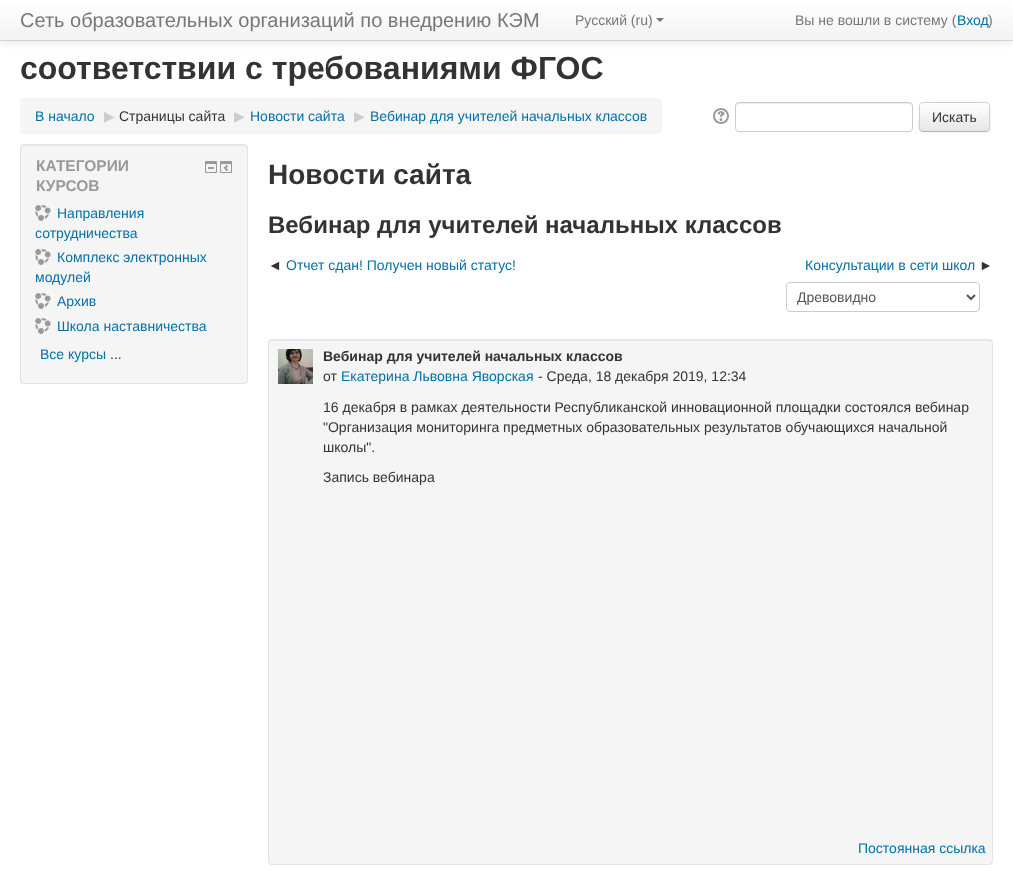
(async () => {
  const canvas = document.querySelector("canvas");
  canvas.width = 1013;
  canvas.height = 880;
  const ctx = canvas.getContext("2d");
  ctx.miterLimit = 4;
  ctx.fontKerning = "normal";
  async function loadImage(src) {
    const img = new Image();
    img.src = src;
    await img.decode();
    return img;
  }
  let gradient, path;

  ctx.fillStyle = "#ffffff";
  ctx.fillRect(0, 0, 1013, 880);
  ctx.fillStyle = "rgba(0, 0, 0, 0.1)";
  ctx.filter = "blur(5px)";
  ctx.beginPath();
  ctx.rect(0, 1, 1013, 41);
  ctx.fill();
  ctx.filter = "none";
  gradient = ctx.createLinearGradient(507, 0, 507, 40);
  gradient.addColorStop(0, "#ffffff");
  gradient.addColorStop(1, "#f2f2f2");
  ctx.fillStyle = gradient;
  ctx.fillRect(0, 0, 1013, 40);
  ctx.fillStyle = "#d4d4d4";
  ctx.fillRect(0, 40, 1013, 1);
  ctx.fillStyle = "#777777";
  path = new Path2D("M656 18H664L660 22Z");
  ctx.fill(path);
  ctx.fillStyle = "#f5f5f5";
  ctx.beginPath();
  ctx.roundRect(20, 98, 642, 36, 4);
  ctx.fill();
  ctx.drawImage(await loadImage("img/1.png"), 713, 108, 16, 16);
  ctx.fillStyle = "#ececec";
  path = new Path2D("M739 104H909C911 104 912 105 912 107V106C912 104 911 103 909 103H739C737 103 736 104 736 106V107C736 105 737 104 739 104Z");
  ctx.fill(path);
  ctx.beginPath();
  ctx.roundRect(735.5, 102.5, 177, 29, 3.5);
  ctx.strokeStyle = "#cccccc";
  ctx.stroke();
  ctx.fillStyle = "rgba(0, 0, 0, 0.05)";
  ctx.filter = "blur(1px)";
  ctx.beginPath();
  ctx.roundRect(919, 103, 71, 30, 4);
  ctx.fill();
  ctx.filter = "none";
  ctx.fillStyle = "#f5f5f5";
  ctx.beginPath();
  ctx.roundRect(919, 102, 71, 30, 4);
  ctx.fill();
  ctx.save();
  ctx.beginPath();
  ctx.roundRect(919, 102, 71, 30, 4);
  ctx.clip();
  gradient = ctx.createLinearGradient(955, 103, 955, 131);
  gradient.addColorStop(0, "#ffffff");
  gradient.addColorStop(1, "#e6e6e6");
  ctx.fillStyle = gradient;
  ctx.fillRect(919, 103, 71, 28);
  ctx.restore();
  path = new Path2D("M988.5 130.5L986.5 131.5H922.5L920.5 130.5");
  ctx.strokeStyle = "#b3b3b3";
  ctx.stroke(path);
  path = new Path2D("M920.5 130.5C918.5 128.5 919.5 120 919.5 117C919.5 101 917 102.5 933.5 102.5H975.5C992 102.5 989.5 101 989.5 117C989.5 120 990.5 128.5 988.5 130.5");
  ctx.strokeStyle = "#cccccc";
  ctx.stroke(path);
  ctx.beginPath();
  ctx.roundRect(20, 144, 228, 240, 4);
  ctx.fill();
  ctx.fillStyle = "#e9e9e9";
  path = new Path2D("M24 146H244C246 146 247 147 247 149V148C247 146 246 145 244 145H24C22 145 21 146 21 148V149C21 147 22 146 24 146Z");
  ctx.fill(path);
  ctx.beginPath();
  ctx.roundRect(20.5, 144.5, 227, 239, 3.5);
  ctx.strokeStyle = "#e3e3e3";
  ctx.stroke();
  ctx.drawImage(await loadImage("img/2.png"), 205, 161, 12, 12);
  ctx.drawImage(await loadImage("img/3.png"), 220, 161, 12, 12);
  ctx.drawImage(await loadImage("img/4.png"), 35, 205, 16, 16);
  ctx.drawImage(await loadImage("img/4.png"), 35, 249, 16, 16);
  ctx.drawImage(await loadImage("img/5.png"), 35, 293, 16, 16);
  ctx.drawImage(await loadImage("img/4.png"), 35, 318, 16, 16);
  ctx.beginPath();
  ctx.roundRect(786.5, 282.5, 193, 29, 3.5);
  ctx.strokeStyle = "#cccccc";
  ctx.stroke();
  path = new Path2D("M967 295L971 299L975 295");
  ctx.strokeStyle = "#555555";
  ctx.lineWidth = 2;
  ctx.stroke(path);
  ctx.fillStyle = "#f5f5f5";
  ctx.beginPath();
  ctx.roundRect(268, 339, 725, 526, 4);
  ctx.fill();
  ctx.fillStyle = "#e9e9e9";
  path = new Path2D("M272 341H989C991 341 992 342 992 344C992 342 991 340 989 340H272C270 340 269 342 269 344C269 342 270 341 272 341Z");
  ctx.fill(path);
  ctx.beginPath();
  ctx.roundRect(268.5, 339.5, 724, 525, 3.5);
  ctx.strokeStyle = "#e3e3e3";
  ctx.lineWidth = 1;
  ctx.stroke();
  ctx.drawImage(await loadImage("img/6.png"), 278, 349, 35, 35);
  ctx.font = "20px Liberation Sans";
  ctx.fillStyle = "#777777";
  ctx.fillText("Сеть образовательных организаций по внедрению КЭМ", 20, 27);
  ctx.font = "14px Liberation Sans";
  ctx.fillText("Русский (ru)", 575, 25);
  ctx.fillText("Вы не вошли в систему (", 795, 25);
  ctx.fillStyle = "#0070a8";
  ctx.fillText("Вход", 957, 25);
  ctx.fillStyle = "#777777";
  ctx.fillText(")", 988, 25);
  ctx.font = "bold 32px Liberation Sans";
  ctx.fillStyle = "#333333";
  ctx.fillText("соответствии с требованиями ФГОС", 20, 79);
  ctx.font = "14px Liberation Sans";
  ctx.fillStyle = "#0070a8";
  ctx.fillText("В начало", 35, 121);
  ctx.font = "14px DejaVu Sans";
  ctx.fillStyle = "#cccccc";
  ctx.fillText("▶︎", 104, 121);
  ctx.font = "14px Liberation Sans";
  ctx.fillStyle = "#333333";
  ctx.fillText("Страницы сайта", 119, 121);
  ctx.font = "14px DejaVu Sans";
  ctx.fillStyle = "#cccccc";
  ctx.fillText("▶︎", 234, 121);
  ctx.font = "14px Liberation Sans";
  ctx.fillStyle = "#0070a8";
  ctx.fillText("Новости сайта", 250, 121);
  ctx.font = "14px DejaVu Sans";
  ctx.fillStyle = "#cccccc";
  ctx.fillText("▶︎", 354, 121);
  ctx.font = "14px Liberation Sans";
  ctx.fillStyle = "#0070a8";
  ctx.fillText("Вебинар для учителей начальных классов", 370, 121);
  ctx.fillStyle = "#333333";
  ctx.fillText("Искать", 932, 122);
  ctx.font = "bold 15.5px Liberation Sans";
  ctx.fillStyle = "#999999";
  ctx.fillText("КАТЕГОРИИ", 36, 171);
  ctx.fillText("КУРСОВ", 36, 191);
  ctx.font = "14px Liberation Sans";
  ctx.fillStyle = "#0070a8";
  for (const [text, x, y] of [
    ["Направления", 57, 218],
    ["сотрудничества", 35, 238],
    ["Комплекс электронных", 57, 262],
    ["модулей", 35, 282],
    ["Архив", 57, 306],
    ["Школа наставничества", 57, 331],
    ["Все курсы", 40, 359],
  ]) {
    ctx.fillText(text, x, y);
  }
  ctx.fillStyle = "#333333";
  ctx.fillText("...", 110, 359);
  ctx.font = "bold 28px Liberation Sans";
  ctx.fillText("Новости сайта", 268, 184);
  ctx.font = "bold 24px Liberation Sans";
  ctx.fillText("Вебинар для учителей начальных классов", 268, 233);
  ctx.font = "14px Liberation Sans";
  ctx.fillText("◄", 268, 270);
  ctx.fillStyle = "#0070a8";
  ctx.fillText("Отчет сдан! Получен новый статус!", 286, 270);
  ctx.fillText("Консультации в сети школ", 805, 270);
  ctx.fillStyle = "#333333";
  ctx.fillText("►", 979, 270);
  ctx.fillStyle = "#555555";
  ctx.fillText("Древовидно", 797, 302);
  ctx.font = "bold 14px Liberation Sans";
  ctx.fillStyle = "#333333";
  ctx.fillText("Вебинар для учителей начальных классов", 323, 361);
  ctx.font = "14px Liberation Sans";
  ctx.fillText("от", 323, 381);
  ctx.fillStyle = "#0070a8";
  ctx.fillText("Екатерина Львовна Яворская", 341, 381);
  ctx.fillStyle = "#333333";
  for (const [text, x, y] of [
    ["- Среда, 18 декабря 2019, 12:34", 538, 381],
    ["16 декабря в рамках деятельности Республиканской инновационной площадки состоялся вебинар", 323, 412],
    ["\"Организация мониторинга предметных образовательных результатов обучающихся начальной", 323, 432],
    ["школы\".", 323, 452],
    ["Запись вебинара", 323, 482],
  ]) {
    ctx.fillText(text, x, y);
  }
  ctx.fillStyle = "#0070a8";
  ctx.fillText("Постоянная ссылка", 858, 853);
})();
